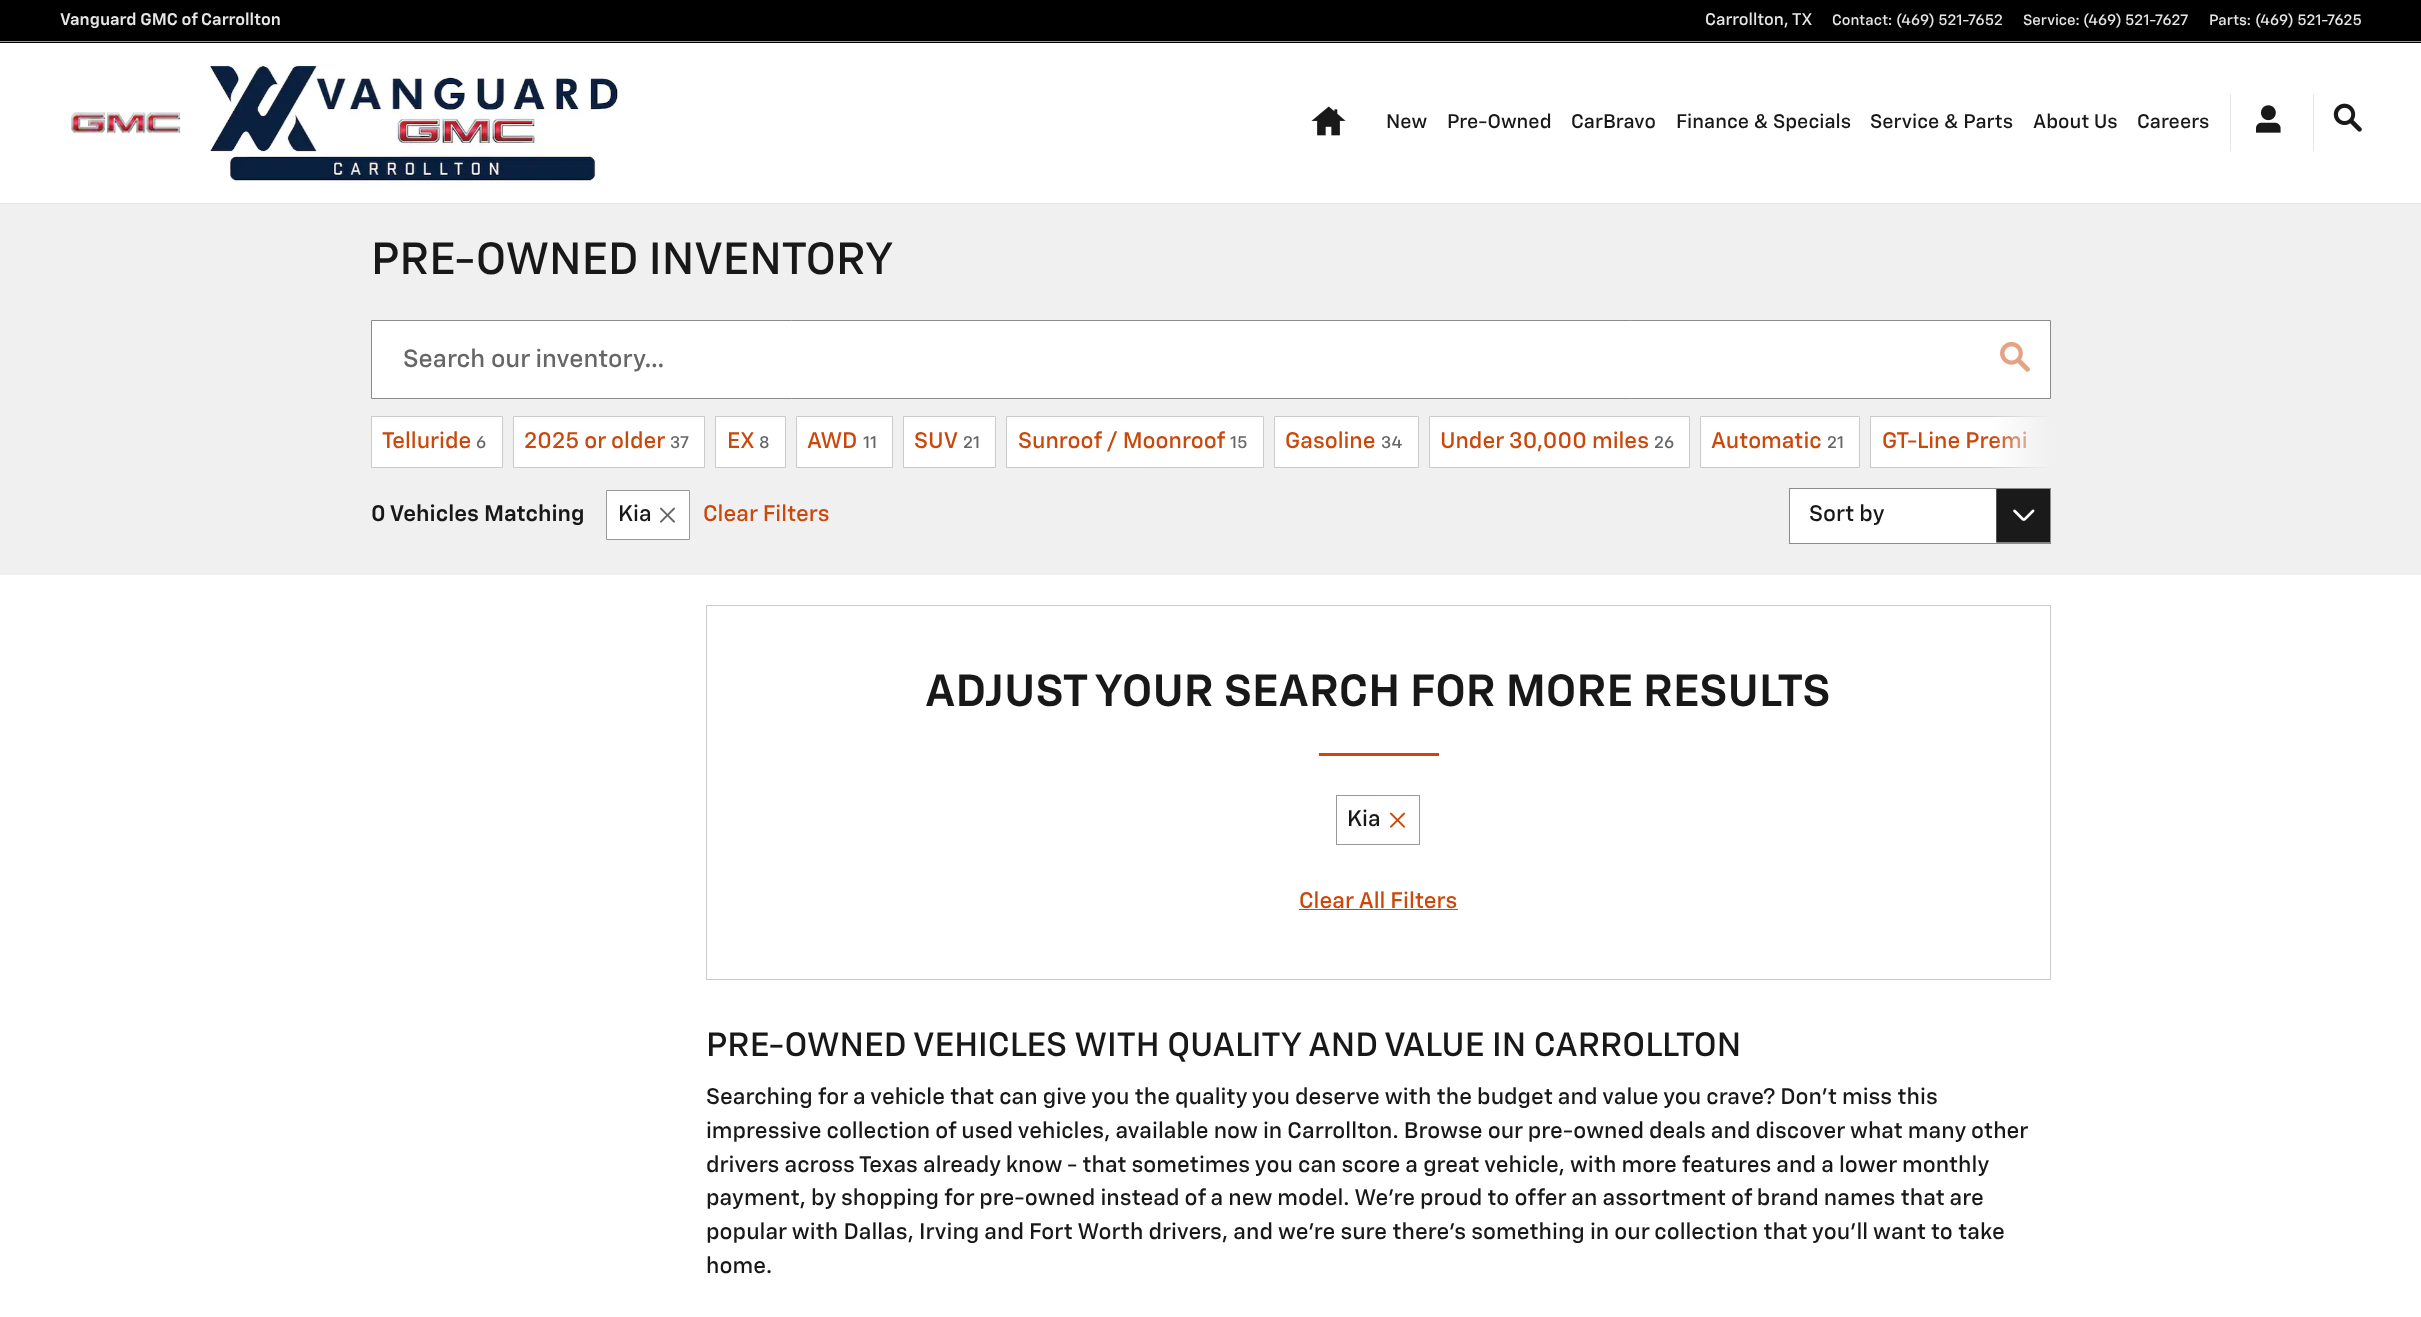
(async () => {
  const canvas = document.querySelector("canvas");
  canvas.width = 2421;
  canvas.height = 1317;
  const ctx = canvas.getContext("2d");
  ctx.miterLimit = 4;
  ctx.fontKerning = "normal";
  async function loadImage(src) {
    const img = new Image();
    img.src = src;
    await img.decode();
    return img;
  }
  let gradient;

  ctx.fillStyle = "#ffffff";
  ctx.fillRect(0, 0, 2421, 1317);
  for (const [x, y, w, h, color] of [
    [0, 203, 2421, 1, "#e6e6e6"],
    [0, 0, 2421, 43, "#000000"],
    [0, 41, 2421, 1, "#999999"],
  ]) {
    ctx.fillStyle = color;
    ctx.fillRect(x, y, w, h);
  }
  ctx.drawImage(await loadImage("img/1.png"), 71, 112, 110, 22);
  ctx.drawImage(await loadImage("img/2.png"), 209, 63, 410, 122);
  ctx.drawImage(await loadImage("img/3.png"), 1311, 106, 35, 30);
  ctx.fillStyle = "#e6e6e6";
  ctx.fillRect(2230, 94, 1, 57);
  ctx.drawImage(await loadImage("img/4.png"), 2256, 105, 25, 28);
  ctx.fillRect(2313, 94, 1, 57);
  ctx.drawImage(await loadImage("img/5.png"), 2333, 103, 29, 29);
  ctx.fillStyle = "#f0f0f0";
  ctx.fillRect(0, 204, 2421, 371);
  ctx.fillStyle = "#ffffff";
  ctx.beginPath();
  ctx.rect(371.5, 320.5, 1679, 78);
  ctx.fill();
  ctx.strokeStyle = "#8b8b8b";
  ctx.stroke();
  ctx.drawImage(await loadImage("img/6.png"), 2000, 341, 30, 31);
  ctx.beginPath();
  ctx.rect(371.5, 416.5, 131, 51);
  ctx.fill();
  ctx.strokeStyle = "#cbcbcb";
  ctx.stroke();
  ctx.beginPath();
  ctx.rect(513.5, 416.5, 191, 51);
  ctx.fill();
  ctx.stroke();
  ctx.beginPath();
  ctx.rect(715.5, 416.5, 70, 51);
  ctx.fill();
  ctx.stroke();
  ctx.beginPath();
  ctx.rect(796.5, 416.5, 96, 51);
  ctx.fill();
  ctx.stroke();
  ctx.beginPath();
  ctx.rect(903.5, 416.5, 92, 51);
  ctx.fill();
  ctx.stroke();
  ctx.beginPath();
  ctx.rect(1006.5, 416.5, 257, 51);
  ctx.fill();
  ctx.stroke();
  ctx.beginPath();
  ctx.rect(1274.5, 416.5, 144, 51);
  ctx.fill();
  ctx.stroke();
  ctx.beginPath();
  ctx.rect(1429.5, 416.5, 260, 51);
  ctx.fill();
  ctx.stroke();
  ctx.beginPath();
  ctx.rect(1700.5, 416.5, 159, 51);
  ctx.fill();
  ctx.stroke();
  ctx.fillRect(1871, 417, 180, 50);
  ctx.save();
  ctx.beginPath();
  ctx.rect(371, 396, 1680, 92);
  ctx.clip();
  ctx.strokeRect(1870.5, 416.5, 314, 51);
  ctx.restore();
  ctx.beginPath();
  ctx.rect(606.5, 490.5, 83, 49);
  ctx.fill();
  ctx.strokeStyle = "#999999";
  ctx.stroke();
  ctx.drawImage(await loadImage("img/7.png"), 660, 507, 15, 16);
  ctx.fillRect(1790, 489, 260, 54);
  ctx.drawImage(await loadImage("img/8.png"), 1996, 489, 54, 54);
  ctx.strokeStyle = "#8b8b8b";
  ctx.strokeRect(1789.5, 488.5, 261, 55);
  ctx.strokeStyle = "#cbcbcb";
  ctx.strokeRect(706.5, 605.5, 1344, 374);
  ctx.fillStyle = "#c9480c";
  ctx.fillRect(1319, 753, 120, 3);
  ctx.strokeStyle = "#999999";
  ctx.strokeRect(1336.5, 795.5, 83, 49);
  ctx.drawImage(await loadImage("img/9.png"), 1390, 812, 15, 16);
  ctx.fillRect(1299, 909, 159, 1);
  ctx.font = "600 16.9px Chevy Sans";
  ctx.fillStyle = "#e6e6e6";
  ctx.fillText("Vanguard GMC of Carrollton", 60, 25);
  ctx.font = "500 16.9px Chevy Sans";
  ctx.fillText("Carrollton,", 1705, 25);
  ctx.fillText("TX", 1792, 25);
  ctx.font = "500 15px Chevy Sans";
  for (const [text, x, y] of [
    ["Contact:", 1832, 25],
    ["(469) 521-7652", 1896, 25],
    ["Service: (469) 521-7627", 2023, 25],
    ["Parts:", 2209, 25],
    ["(469) 521-7625", 2255, 25],
  ]) {
    ctx.fillText(text, x, y);
  }
  ctx.font = "500 19.75px Chevy Sans";
  ctx.fillStyle = "#181818";
  for (const [text, x, y] of [
    ["New", 1386, 128],
    ["Pre-Owned", 1447, 128],
    ["CarBravo", 1571, 128],
    ["Finance & Specials", 1676, 128],
    ["Service & Parts", 1870, 128],
    ["About Us", 2033, 128],
    ["Careers", 2137, 128],
  ]) {
    ctx.fillText(text, x, y);
  }
  ctx.font = "500 45px Chevy Sans";
  ctx.fillText("PRE-OWNED INVENTORY", 371, 274);
  ctx.font = "500 25px Chevy Sans";
  ctx.fillStyle = "#666666";
  ctx.fillText("Search our inventory…", 403, 367);
  ctx.font = "500 22.5px Chevy Sans";
  ctx.fillStyle = "#c9480c";
  ctx.fillText("Telluride", 382, 448);
  ctx.font = "500 16.9px Chevy Sans";
  ctx.fillStyle = "#666666";
  ctx.fillText("6", 476, 448);
  ctx.font = "500 22.5px Chevy Sans";
  ctx.fillStyle = "#c9480c";
  ctx.fillText("2025 or older", 524, 448);
  ctx.font = "500 16.9px Chevy Sans";
  ctx.fillStyle = "#666666";
  ctx.fillText("37", 670, 448);
  ctx.font = "500 22.5px Chevy Sans";
  ctx.fillStyle = "#c9480c";
  ctx.fillText("EX", 727, 448);
  ctx.font = "500 16.9px Chevy Sans";
  ctx.fillStyle = "#666666";
  ctx.fillText("8", 759, 448);
  ctx.font = "500 22.5px Chevy Sans";
  ctx.fillStyle = "#c9480c";
  ctx.fillText("AWD", 807, 448);
  ctx.font = "500 16.9px Chevy Sans";
  ctx.fillStyle = "#666666";
  ctx.fillText("11", 863, 448);
  ctx.font = "500 22.5px Chevy Sans";
  ctx.fillStyle = "#c9480c";
  ctx.fillText("SUV", 914, 448);
  ctx.font = "500 16.9px Chevy Sans";
  ctx.fillStyle = "#666666";
  ctx.fillText("21", 963, 448);
  ctx.font = "500 22.5px Chevy Sans";
  ctx.fillStyle = "#c9480c";
  ctx.fillText("Sunroof / Moonroof", 1018, 448);
  ctx.font = "500 16.9px Chevy Sans";
  ctx.fillStyle = "#666666";
  ctx.fillText("15", 1230, 448);
  ctx.font = "500 22.5px Chevy Sans";
  ctx.fillStyle = "#c9480c";
  ctx.fillText("Gasoline", 1285, 448);
  ctx.font = "500 16.9px Chevy Sans";
  ctx.fillStyle = "#666666";
  ctx.fillText("34", 1381, 448);
  ctx.font = "500 22.5px Chevy Sans";
  ctx.fillStyle = "#c9480c";
  ctx.fillText("Under 30,000 miles", 1440, 448);
  ctx.font = "500 16.9px Chevy Sans";
  ctx.fillStyle = "#666666";
  ctx.fillText("26", 1654, 448);
  ctx.font = "500 22.5px Chevy Sans";
  ctx.fillStyle = "#c9480c";
  ctx.fillText("Automatic", 1711, 448);
  ctx.font = "500 16.9px Chevy Sans";
  ctx.fillStyle = "#666666";
  ctx.fillText("21", 1827, 448);
  ctx.font = "500 22.5px Chevy Sans";
  ctx.fillStyle = "#c9480c";
  ctx.fillText("GT-Line Premi", 1882, 448);
  gradient = ctx.createLinearGradient(2051, 442, 1991, 442);
  gradient.addColorStop(0, "#f0f0f0");
  gradient.addColorStop(1, "rgba(240, 240, 240, 0)");
  ctx.fillStyle = gradient;
  ctx.fillRect(1992, 416, 59, 52);
  ctx.font = "600 22.5px Chevy Sans";
  ctx.fillStyle = "#181818";
  ctx.fillText("0 Vehicles Matching", 371, 521);
  ctx.font = "500 22.5px Chevy Sans";
  ctx.fillText("Kia", 618, 521);
  ctx.fillStyle = "#c9480c";
  ctx.fillText("Clear Filters", 703, 521);
  ctx.fillStyle = "#181818";
  ctx.fillText("Sort by", 1809, 521);
  ctx.font = "600 45px Chevy Sans";
  ctx.fillText("ADJUST YOUR SEARCH FOR MORE RESULTS", 925, 706);
  ctx.font = "500 22.5px Chevy Sans";
  ctx.fillText("Kia", 1347, 826);
  ctx.fillStyle = "#c9480c";
  ctx.fillText("Clear All Filters", 1299, 908);
  ctx.font = "500 33.75px Chevy Sans";
  ctx.fillStyle = "#181818";
  ctx.fillText("PRE-OWNED VEHICLES WITH QUALITY AND VALUE IN CARROLLTON", 706, 1056);
  ctx.font = "500 22.5px Chevy Sans";
  for (const [text, x, y] of [
    ["Searching for a vehicle that can give you the quality you deserve with the budget and value you crave? Don't miss this", 706, 1104],
    ["impressive collection of used vehicles, available now in Carrollton. Browse our pre-owned deals and discover what many other", 706, 1138],
    ["drivers across Texas already know - that sometimes you can score a great vehicle, with more features and a lower monthly", 706, 1172],
    ["payment, by shopping for pre-owned instead of a new model. We're proud to offer an assortment of brand names that are", 706, 1205],
    ["popular with Dallas, Irving and Fort Worth drivers, and we're sure there's something in our collection that you'll want to take", 706, 1239],
    ["home.", 706, 1273],
  ]) {
    ctx.fillText(text, x, y);
  }
})();
